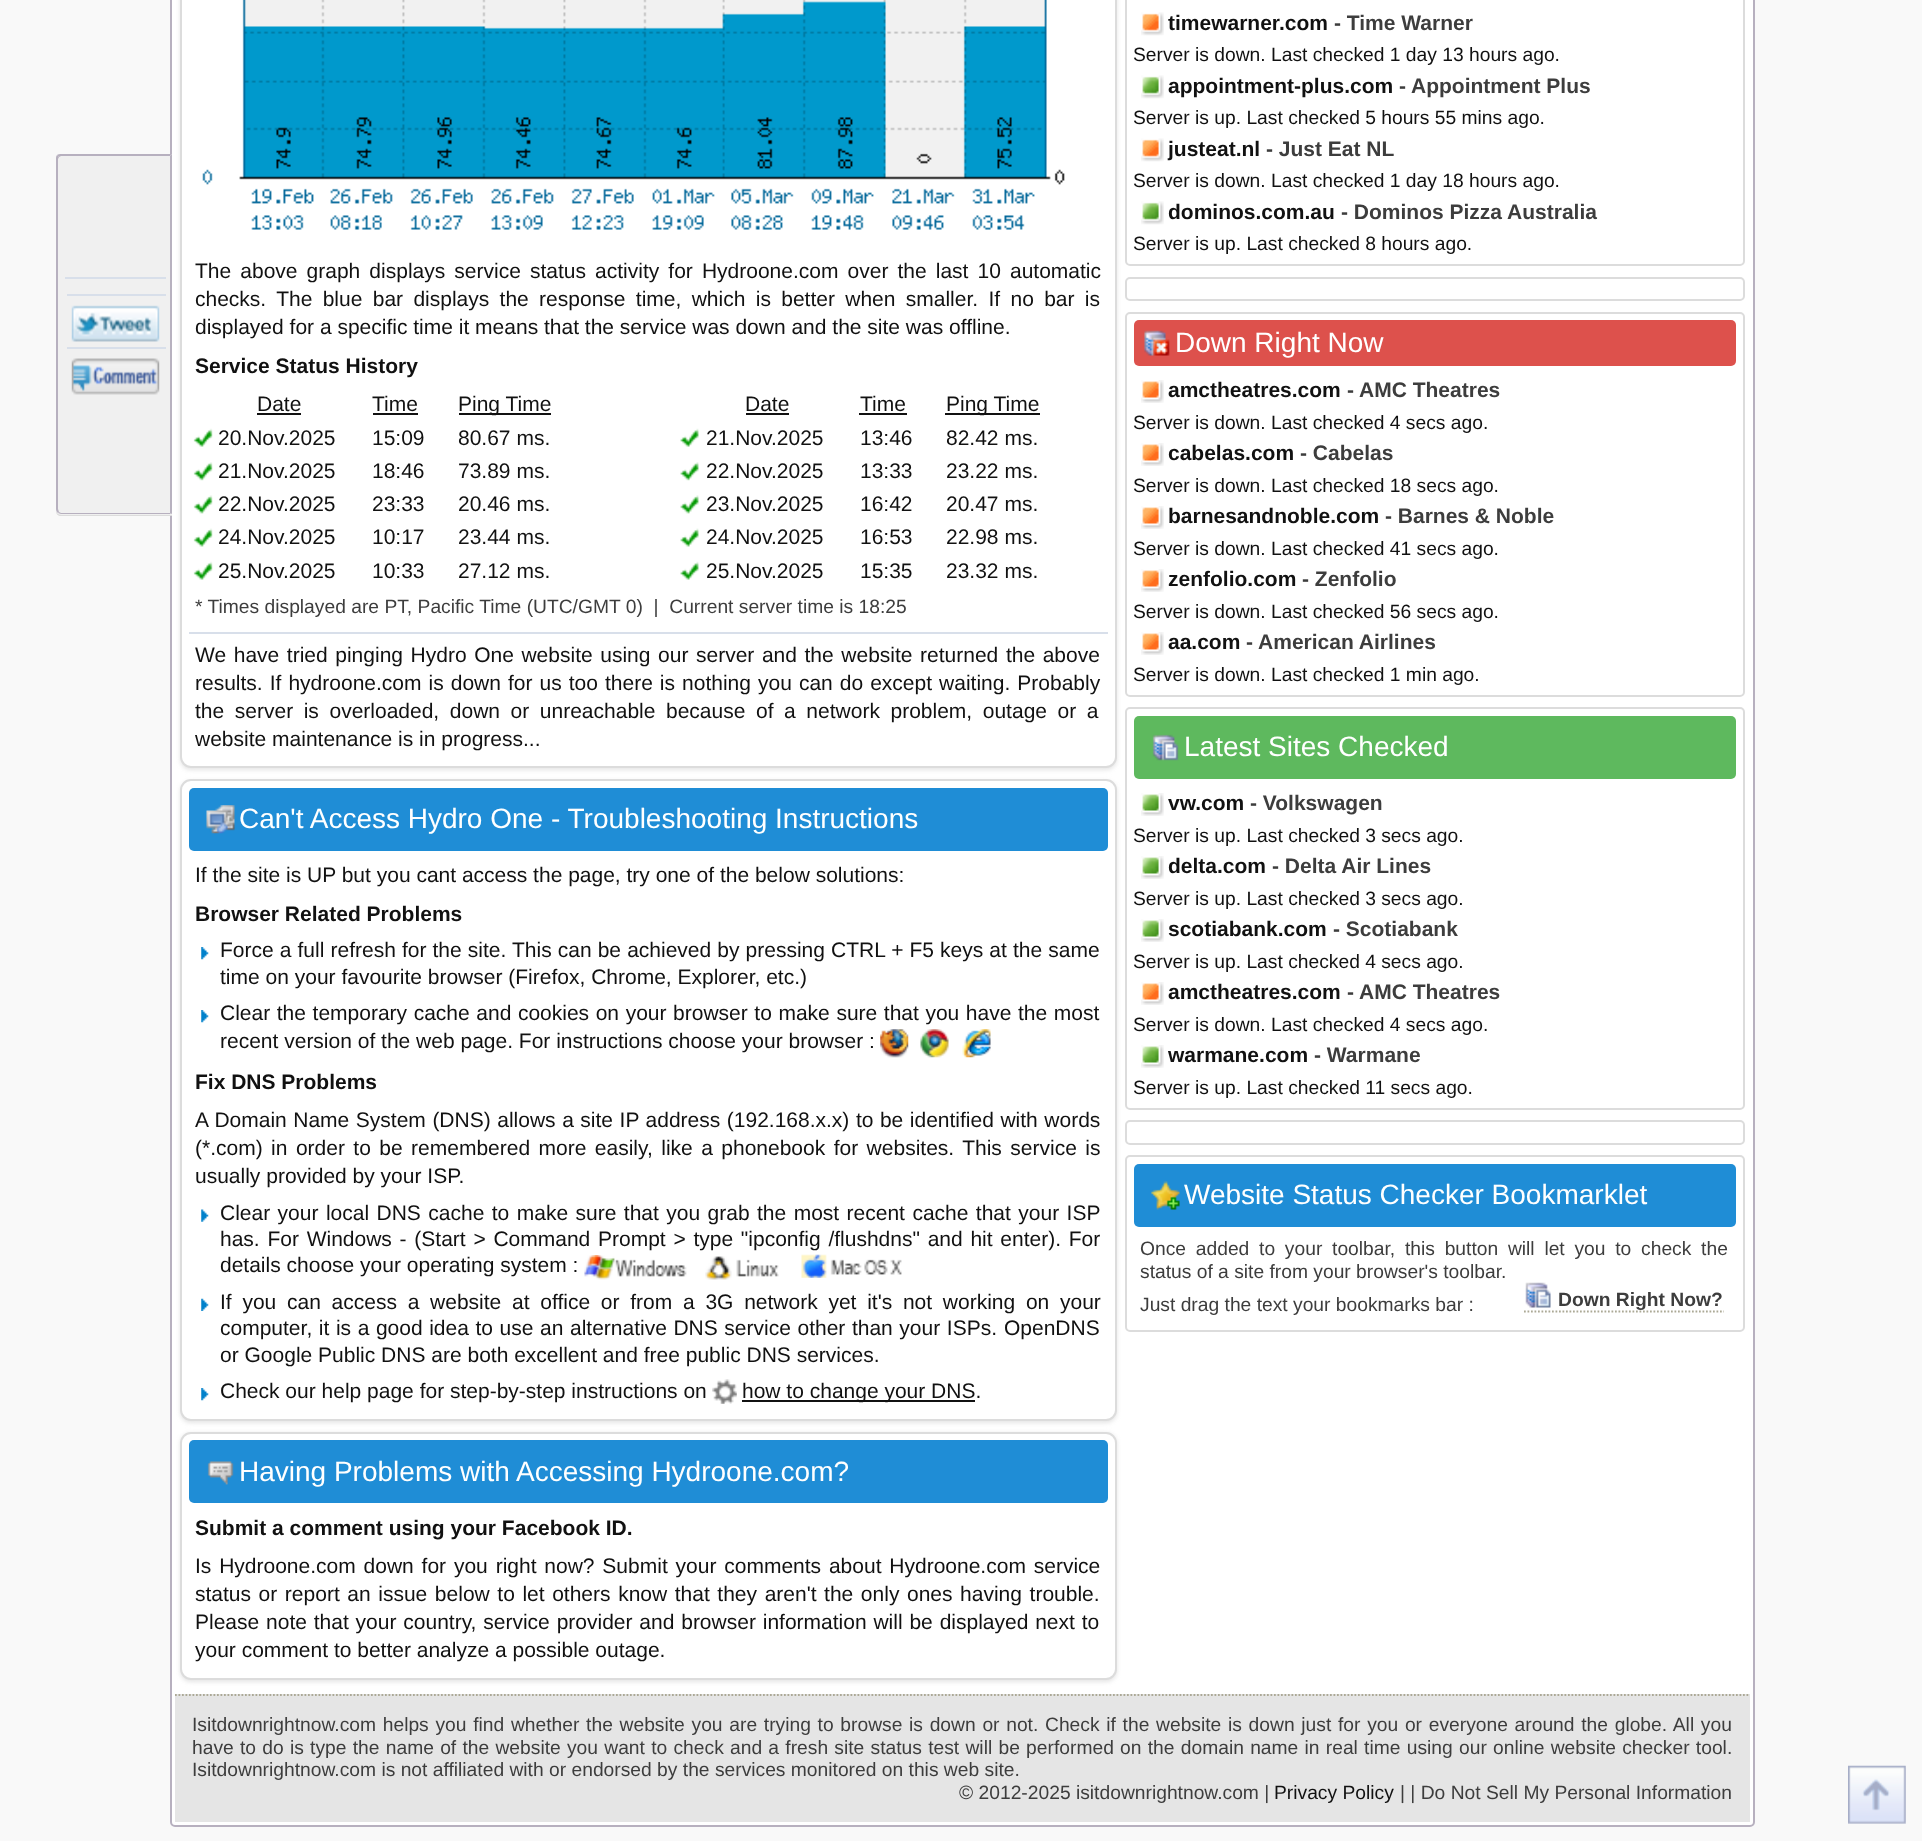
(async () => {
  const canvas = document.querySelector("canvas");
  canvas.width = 1922;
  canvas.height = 1841;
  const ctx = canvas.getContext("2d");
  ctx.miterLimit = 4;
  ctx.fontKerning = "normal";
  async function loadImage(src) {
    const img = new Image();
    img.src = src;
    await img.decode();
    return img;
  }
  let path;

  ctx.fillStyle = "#f9f9f9";
  ctx.fillRect(0, 0, 1922, 1841);
  ctx.fillStyle = "#ffffff";
  ctx.beginPath();
  ctx.roundRect(171, -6, 1583, 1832, 4);
  ctx.fill();
  ctx.strokeStyle = "#b7b0bf";
  ctx.lineWidth = 2;
  ctx.stroke();
  ctx.fillStyle = "#dcdcdc";
  path = new Path2D("M56 509V511C56 514 58 516 61 516H172V156V514H61C58 514 56 512 56 509Z");
  ctx.fill(path);
  ctx.fillStyle = "#f0f0f0";
  ctx.beginPath();
  ctx.roundRect(56, 154, 116, 361, [5, 0, 0, 5]);
  ctx.fill();
  ctx.fillStyle = "#b7b0bf";
  path = new Path2D("M61 154C60 154 58 154 57 155L59 157L61 156H170L172 154Z");
  ctx.fill(path);
  ctx.fillStyle = "#b7b1bf";
  path = new Path2D("M172 154V514L170 513V156Z");
  ctx.fill(path);
  ctx.fillStyle = "#b7b0bf";
  path = new Path2D("M171 514H61L58 513L59 512L61 513H170Z");
  ctx.fill(path);
  path = new Path2D("M56 159V509C56 511 57 512 58 513L59 512L58 509V159L59 157L57 155C56 156 56 158 56 159Z");
  ctx.fill(path);
  for (const [x, y, w, h, color] of [
    [65, 277, 101, 2, "#d8dfea"],
    [67, 294, 99, 2, "#d8dfea"],
    [67, 347, 99, 2, "#d8dfea"],
  ]) {
    ctx.fillStyle = color;
    ctx.fillRect(x, y, w, h);
  }
  ctx.drawImage(await loadImage("img/1.png"), 71, 305, 89, 37);
  ctx.drawImage(await loadImage("img/2.png"), 71, 358, 89, 37);
  ctx.fillStyle = "#e5e5e5";
  ctx.filter = "blur(2px)";
  ctx.beginPath();
  ctx.roundRect(180, -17, 937, 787, 11);
  ctx.fill();
  ctx.filter = "none";
  ctx.fillStyle = "#ffffff";
  ctx.beginPath();
  ctx.roundRect(181, -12, 935, 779, 10);
  ctx.fill();
  ctx.strokeStyle = "#dcdcdc";
  ctx.stroke();
  ctx.drawImage(await loadImage("img/3.png"), 202, 0, 863, 230);
  for (const [x, y, w, h, color] of [
    [257, 413, 44, 2, "#111111"],
    [373, 413, 45, 2, "#111111"],
    [459, 413, 92, 2, "#111111"],
    [746, 413, 43, 2, "#111111"],
    [859, 413, 48, 2, "#111111"],
    [945, 413, 95, 2, "#111111"],
  ]) {
    ctx.fillStyle = color;
    ctx.fillRect(x, y, w, h);
  }
  ctx.drawImage(await loadImage("img/4.png"), 193, 428, 20, 19);
  ctx.drawImage(await loadImage("img/5.png"), 680, 428, 19, 19);
  ctx.drawImage(await loadImage("img/6.png"), 193, 462, 20, 19);
  ctx.drawImage(await loadImage("img/7.png"), 680, 462, 19, 19);
  ctx.drawImage(await loadImage("img/8.png"), 193, 495, 20, 19);
  ctx.drawImage(await loadImage("img/9.png"), 680, 495, 19, 19);
  ctx.drawImage(await loadImage("img/10.png"), 193, 528, 20, 19);
  ctx.drawImage(await loadImage("img/11.png"), 680, 528, 19, 19);
  ctx.drawImage(await loadImage("img/4.png"), 193, 561, 20, 19);
  ctx.drawImage(await loadImage("img/5.png"), 680, 561, 19, 19);
  ctx.fillStyle = "#d8dfea";
  ctx.fillRect(189, 632, 919, 2);
  ctx.fillStyle = "#e5e5e5";
  ctx.filter = "blur(2px)";
  ctx.beginPath();
  ctx.roundRect(180, 781, 937, 642, 11);
  ctx.fill();
  ctx.filter = "none";
  ctx.fillStyle = "#ffffff";
  ctx.beginPath();
  ctx.roundRect(181, 780, 935, 640, 10);
  ctx.fill();
  ctx.stroke();
  ctx.fillStyle = "#1f8dd6";
  ctx.beginPath();
  ctx.roundRect(189, 788, 919, 63, 5);
  ctx.fill();
  ctx.drawImage(await loadImage("img/12.png"), 206, 805, 29, 29);
  ctx.drawImage(await loadImage("img/13.png"), 201, 947, 8, 13);
  ctx.drawImage(await loadImage("img/13.png"), 201, 1010, 8, 13);
  ctx.drawImage(await loadImage("img/14.png"), 880, 1029, 29, 29);
  ctx.drawImage(await loadImage("img/15.png"), 920, 1029, 29, 29);
  ctx.drawImage(await loadImage("img/16.png"), 962, 1029, 29, 29);
  ctx.drawImage(await loadImage("img/17.png"), 201, 1209, 8, 13);
  ctx.drawImage(await loadImage("img/18.png"), 584, 1255, 103, 25);
  ctx.drawImage(await loadImage("img/19.png"), 705, 1256, 74, 24);
  ctx.drawImage(await loadImage("img/20.png"), 801, 1254, 101, 24);
  ctx.drawImage(await loadImage("img/21.png"), 201, 1298, 8, 13);
  ctx.drawImage(await loadImage("img/13.png"), 201, 1388, 8, 13);
  ctx.drawImage(await loadImage("img/22.png"), 712, 1379, 25, 25);
  ctx.fillStyle = "#111111";
  ctx.fillRect(742, 1400, 233, 2);
  ctx.fillStyle = "#e5e5e5";
  ctx.filter = "blur(2px)";
  ctx.beginPath();
  ctx.roundRect(180, 1433, 937, 249, 11);
  ctx.fill();
  ctx.filter = "none";
  ctx.fillStyle = "#ffffff";
  ctx.beginPath();
  ctx.roundRect(181, 1433, 935, 246, 10);
  ctx.fill();
  ctx.stroke();
  ctx.fillStyle = "#1f8dd6";
  ctx.beginPath();
  ctx.roundRect(189, 1440, 919, 63, 5);
  ctx.fill();
  ctx.drawImage(await loadImage("img/23.png"), 207, 1461, 27, 24);
  ctx.beginPath();
  ctx.roundRect(1126, -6, 618, 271, 4);
  ctx.stroke();
  ctx.drawImage(await loadImage("img/24.png"), 1141, 12, 23, 24);
  ctx.drawImage(await loadImage("img/25.png"), 1141, 75, 23, 24);
  ctx.drawImage(await loadImage("img/24.png"), 1141, 138, 23, 24);
  ctx.drawImage(await loadImage("img/25.png"), 1141, 201, 23, 24);
  ctx.beginPath();
  ctx.roundRect(1126, 278, 618, 22, 4);
  ctx.stroke();
  ctx.beginPath();
  ctx.roundRect(1126, 313, 618, 383, 4);
  ctx.stroke();
  ctx.fillStyle = "#dd514c";
  ctx.beginPath();
  ctx.roundRect(1134, 320, 602, 46, 5);
  ctx.fill();
  ctx.drawImage(await loadImage("img/26.png"), 1144, 330, 26, 26);
  ctx.drawImage(await loadImage("img/27.png"), 1141, 380, 23, 23);
  ctx.drawImage(await loadImage("img/27.png"), 1141, 443, 23, 23);
  ctx.drawImage(await loadImage("img/27.png"), 1141, 506, 23, 23);
  ctx.drawImage(await loadImage("img/27.png"), 1141, 569, 23, 23);
  ctx.drawImage(await loadImage("img/27.png"), 1141, 632, 23, 23);
  ctx.beginPath();
  ctx.roundRect(1126, 708, 618, 401, 4);
  ctx.stroke();
  ctx.fillStyle = "#5eb95e";
  ctx.beginPath();
  ctx.roundRect(1134, 716, 602, 63, 5);
  ctx.fill();
  ctx.drawImage(await loadImage("img/28.png"), 1152, 734, 27, 27);
  ctx.drawImage(await loadImage("img/29.png"), 1141, 793, 23, 23);
  ctx.drawImage(await loadImage("img/29.png"), 1141, 856, 23, 23);
  ctx.drawImage(await loadImage("img/29.png"), 1141, 919, 23, 23);
  ctx.drawImage(await loadImage("img/27.png"), 1141, 982, 23, 23);
  ctx.drawImage(await loadImage("img/29.png"), 1141, 1045, 23, 23);
  ctx.beginPath();
  ctx.roundRect(1126, 1121, 618, 23, 4);
  ctx.stroke();
  ctx.beginPath();
  ctx.roundRect(1126, 1156, 618, 175, 4);
  ctx.stroke();
  ctx.fillStyle = "#1f8dd6";
  ctx.beginPath();
  ctx.roundRect(1134, 1164, 602, 63, 5);
  ctx.fill();
  ctx.drawImage(await loadImage("img/30.png"), 1151, 1181, 29, 29);
  path = new Path2D("M1524 1311.5H1724");
  ctx.strokeStyle = "#aca996";
  ctx.lineWidth = 1.8;
  ctx.setLineDash([1.75, 1.75]);
  ctx.stroke(path);
  ctx.drawImage(await loadImage("img/31.png"), 1525, 1282, 26, 26);
  ctx.fillStyle = "#e5e5e5";
  ctx.fillRect(175, 1694, 1575, 128);
  path = new Path2D("M175 1695H1750");
  ctx.stroke(path);
  ctx.drawImage(await loadImage("img/32.png"), 1848, 1765, 58, 59);
  ctx.wordSpacing = "3.25px";
  ctx.font = "21px Liberation Sans";
  ctx.fillStyle = "#111111";
  ctx.fillText("The above graph displays service status activity for Hydroone.com over the last 10 automatic", 195, 278);
  ctx.wordSpacing = "4.5px";
  ctx.fillText("checks. The blue bar displays the response time, which is better when smaller. If no bar is", 195, 306);
  ctx.wordSpacing = "0px";
  ctx.fillText("displayed for a specific time it means that the service was down and the site was offline.", 195, 334);
  ctx.font = "bold 21px Liberation Sans";
  ctx.fillText("Service Status History", 195, 373);
  ctx.font = "21px Liberation Sans";
  for (const [text, x, y] of [
    ["Date", 257, 411],
    ["Time", 372, 411],
    ["Ping Time", 458, 411],
    ["Date", 745, 411],
    ["Time", 860, 411],
    ["Ping Time", 946, 411],
    ["20.Nov.2025", 218, 445],
    ["15:09", 372, 445],
    ["80.67 ms.", 458, 445],
    ["21.Nov.2025", 706, 445],
    ["13:46", 860, 445],
    ["82.42 ms.", 946, 445],
    ["21.Nov.2025", 218, 478],
    ["18:46", 372, 478],
    ["73.89 ms.", 458, 478],
    ["22.Nov.2025", 706, 478],
    ["13:33", 860, 478],
    ["23.22 ms.", 946, 478],
    ["22.Nov.2025", 218, 511],
    ["23:33", 372, 511],
    ["20.46 ms.", 458, 511],
    ["23.Nov.2025", 706, 511],
    ["16:42", 860, 511],
    ["20.47 ms.", 946, 511],
    ["24.Nov.2025", 218, 544],
    ["10:17", 372, 544],
    ["23.44 ms.", 458, 544],
    ["24.Nov.2025", 706, 544],
    ["16:53", 860, 544],
    ["22.98 ms.", 946, 544],
    ["25.Nov.2025", 218, 578],
    ["10:33", 372, 578],
    ["27.12 ms.", 458, 578],
    ["25.Nov.2025", 706, 578],
    ["15:35", 860, 578],
    ["23.32 ms.", 946, 578],
  ]) {
    ctx.fillText(text, x, y);
  }
  ctx.font = "19.25px Liberation Sans";
  ctx.fillStyle = "#3d3d3d";
  ctx.fillText("* Times displayed are PT, Pacific Time (UTC/GMT 0)  |  Current server time is 18:25", 195, 613);
  ctx.wordSpacing = "1.75px";
  ctx.font = "21px Liberation Sans";
  ctx.fillStyle = "#111111";
  ctx.fillText("We have tried pinging Hydro One website using our server and the website returned the above", 195, 662);
  ctx.wordSpacing = "1.2px";
  ctx.fillText("results. If hydroone.com is down for us too there is nothing you can do except waiting. Probably", 195, 690);
  ctx.wordSpacing = "4.75px";
  ctx.fillText("the server is overloaded, down or unreachable because of a network problem, outage or a", 195, 718);
  ctx.wordSpacing = "0px";
  ctx.fillText("website maintenance is in progress...", 195, 746);
  ctx.font = "28px Liberation Sans";
  ctx.fillStyle = "#ffffff";
  ctx.fillText("Can't Access Hydro One - Troubleshooting Instructions", 239, 828);
  ctx.font = "21px Liberation Sans";
  ctx.fillStyle = "#111111";
  ctx.fillText("If the site is UP but you cant access the page, try one of the below solutions:", 195, 882);
  ctx.font = "bold 21px Liberation Sans";
  ctx.fillText("Browser Related Problems", 195, 921);
  ctx.wordSpacing = "0.25px";
  ctx.font = "21px Liberation Sans";
  ctx.fillText("Force a full refresh for the site. This can be achieved by pressing CTRL + F5 keys at the same", 220, 957);
  ctx.wordSpacing = "0px";
  ctx.fillText("time on your favourite browser (Firefox, Chrome, Explorer, etc.)", 220, 984);
  ctx.wordSpacing = "0.75px";
  ctx.fillText("Clear the temporary cache and cookies on your browser to make sure that you have the most", 220, 1020);
  ctx.wordSpacing = "0px";
  ctx.fillText("recent version of the web page. For instructions choose your browser :", 220, 1048);
  ctx.font = "bold 21px Liberation Sans";
  ctx.fillText("Fix DNS Problems", 195, 1089);
  ctx.wordSpacing = "0.7px";
  ctx.font = "21px Liberation Sans";
  ctx.fillText("A Domain Name System (DNS) allows a site IP address (192.168.x.x) to be identified with words", 195, 1127);
  ctx.wordSpacing = "2.6px";
  ctx.fillText("(*.com) in order to be remembered more easily, like a phonebook for websites. This service is", 195, 1155);
  ctx.wordSpacing = "0px";
  ctx.fillText("usually provided by your ISP.", 195, 1183);
  ctx.wordSpacing = "1.6px";
  ctx.fillText("Clear your local DNS cache to make sure that you grab the most recent cache that your ISP", 220, 1220);
  ctx.wordSpacing = "1.9px";
  ctx.fillText("has. For Windows - (Start > Command Prompt > type \"ipconfig /flushdns\" and hit enter). For", 220, 1246);
  ctx.wordSpacing = "0px";
  ctx.fillText("details choose your operating system :", 220, 1272);
  ctx.wordSpacing = "4.9px";
  ctx.fillText("If you can access a website at office or from a 3G network yet it's not working on your", 220, 1309);
  ctx.wordSpacing = "0.75px";
  ctx.fillText("computer, it is a good idea to use an alternative DNS service other than your ISPs.", 220, 1335);
  ctx.wordSpacing = "0px";
  for (const [text, x, y] of [
    ["OpenDNS", 1004, 1335],
    ["or Google Public DNS are both excellent and free public DNS services.", 220, 1362],
    ["Check our help page for step-by-step instructions on", 220, 1398],
    ["how to change your DNS.", 742, 1398],
  ]) {
    ctx.fillText(text, x, y);
  }
  ctx.font = "28px Liberation Sans";
  ctx.fillStyle = "#ffffff";
  ctx.fillText("Having Problems with Accessing Hydroone.com?", 239, 1481);
  ctx.font = "bold 21px Liberation Sans";
  ctx.fillStyle = "#111111";
  ctx.fillText("Submit a comment using your Facebook ID.", 195, 1535);
  ctx.wordSpacing = "2px";
  ctx.font = "21px Liberation Sans";
  ctx.fillText("Is Hydroone.com down for you right now? Submit your comments about Hydroone.com service", 195, 1573);
  ctx.wordSpacing = "1.75px";
  ctx.fillText("status or report an issue below to let others know that they aren't the only ones having trouble.", 195, 1601);
  ctx.wordSpacing = "1px";
  ctx.fillText("Please note that your country, service provider and browser information will be displayed next to", 195, 1629);
  ctx.wordSpacing = "0px";
  ctx.fillText("your comment to better analyze a possible outage.", 195, 1657);
  ctx.font = "bold 21px Liberation Sans";
  ctx.fillText("timewarner.com", 1168, 30);
  ctx.fillStyle = "#3d3d3d";
  ctx.fillText("- Time Warner", 1334, 30);
  ctx.font = "19.25px Liberation Sans";
  ctx.fillStyle = "#111111";
  ctx.fillText("Server is down. Last checked 1 day 13 hours ago.", 1133, 61);
  ctx.font = "bold 21px Liberation Sans";
  ctx.fillText("appointment-plus.com", 1168, 93);
  ctx.fillStyle = "#3d3d3d";
  ctx.fillText("- Appointment Plus", 1399, 93);
  ctx.font = "19.25px Liberation Sans";
  ctx.fillStyle = "#111111";
  ctx.fillText("Server is up. Last checked 5 hours 55 mins ago.", 1133, 124);
  ctx.font = "bold 21px Liberation Sans";
  ctx.fillText("justeat.nl", 1168, 156);
  ctx.fillStyle = "#3d3d3d";
  ctx.fillText("- Just Eat NL", 1266, 156);
  ctx.font = "19.25px Liberation Sans";
  ctx.fillStyle = "#111111";
  ctx.fillText("Server is down. Last checked 1 day 18 hours ago.", 1133, 187);
  ctx.font = "bold 21px Liberation Sans";
  ctx.fillText("dominos.com.au", 1168, 219);
  ctx.fillStyle = "#3d3d3d";
  ctx.fillText("- Dominos Pizza Australia", 1341, 219);
  ctx.font = "19.25px Liberation Sans";
  ctx.fillStyle = "#111111";
  ctx.fillText("Server is up. Last checked 8 hours ago.", 1133, 250);
  ctx.font = "28px Liberation Sans";
  ctx.fillStyle = "#ffffff";
  ctx.fillText("Down Right Now", 1175, 352);
  ctx.font = "bold 21px Liberation Sans";
  ctx.fillStyle = "#111111";
  ctx.fillText("amctheatres.com", 1168, 397);
  ctx.fillStyle = "#3d3d3d";
  ctx.fillText("- AMC Theatres", 1347, 397);
  ctx.font = "19.25px Liberation Sans";
  ctx.fillStyle = "#111111";
  ctx.fillText("Server is down. Last checked 4 secs ago.", 1133, 429);
  ctx.font = "bold 21px Liberation Sans";
  ctx.fillText("cabelas.com", 1168, 460);
  ctx.fillStyle = "#3d3d3d";
  ctx.fillText("- Cabelas", 1300, 460);
  ctx.font = "19.25px Liberation Sans";
  ctx.fillStyle = "#111111";
  ctx.fillText("Server is down. Last checked 18 secs ago.", 1133, 492);
  ctx.font = "bold 21px Liberation Sans";
  ctx.fillText("barnesandnoble.com", 1168, 523);
  ctx.fillStyle = "#3d3d3d";
  ctx.fillText("- Barnes & Noble", 1385, 523);
  ctx.font = "19.25px Liberation Sans";
  ctx.fillStyle = "#111111";
  ctx.fillText("Server is down. Last checked 41 secs ago.", 1133, 555);
  ctx.font = "bold 21px Liberation Sans";
  ctx.fillText("zenfolio.com", 1168, 586);
  ctx.fillStyle = "#3d3d3d";
  ctx.fillText("- Zenfolio", 1302, 586);
  ctx.font = "19.25px Liberation Sans";
  ctx.fillStyle = "#111111";
  ctx.fillText("Server is down. Last checked 56 secs ago.", 1133, 618);
  ctx.font = "bold 21px Liberation Sans";
  ctx.fillText("aa.com", 1168, 649);
  ctx.fillStyle = "#3d3d3d";
  ctx.fillText("- American Airlines", 1246, 649);
  ctx.font = "19.25px Liberation Sans";
  ctx.fillStyle = "#111111";
  ctx.fillText("Server is down. Last checked 1 min ago.", 1133, 681);
  ctx.font = "28px Liberation Sans";
  ctx.fillStyle = "#ffffff";
  ctx.fillText("Latest Sites Checked", 1184, 756);
  ctx.font = "bold 21px Liberation Sans";
  ctx.fillStyle = "#111111";
  ctx.fillText("vw.com", 1168, 810);
  ctx.fillStyle = "#3d3d3d";
  ctx.fillText("- Volkswagen", 1250, 810);
  ctx.font = "19.25px Liberation Sans";
  ctx.fillStyle = "#111111";
  ctx.fillText("Server is up. Last checked 3 secs ago.", 1133, 842);
  ctx.font = "bold 21px Liberation Sans";
  ctx.fillText("delta.com", 1168, 873);
  ctx.fillStyle = "#3d3d3d";
  ctx.fillText("- Delta Air Lines", 1272, 873);
  ctx.font = "19.25px Liberation Sans";
  ctx.fillStyle = "#111111";
  ctx.fillText("Server is up. Last checked 3 secs ago.", 1133, 905);
  ctx.font = "bold 21px Liberation Sans";
  ctx.fillText("scotiabank.com", 1168, 936);
  ctx.fillStyle = "#3d3d3d";
  ctx.fillText("- Scotiabank", 1333, 936);
  ctx.font = "19.25px Liberation Sans";
  ctx.fillStyle = "#111111";
  ctx.fillText("Server is up. Last checked 4 secs ago.", 1133, 968);
  ctx.font = "bold 21px Liberation Sans";
  ctx.fillText("amctheatres.com", 1168, 999);
  ctx.fillStyle = "#3d3d3d";
  ctx.fillText("- AMC Theatres", 1347, 999);
  ctx.font = "19.25px Liberation Sans";
  ctx.fillStyle = "#111111";
  ctx.fillText("Server is down. Last checked 4 secs ago.", 1133, 1031);
  ctx.font = "bold 21px Liberation Sans";
  ctx.fillText("warmane.com", 1168, 1062);
  ctx.fillStyle = "#3d3d3d";
  ctx.fillText("- Warmane", 1314, 1062);
  ctx.font = "19.25px Liberation Sans";
  ctx.fillStyle = "#111111";
  ctx.fillText("Server is up. Last checked 11 secs ago.", 1133, 1094);
  ctx.font = "28px Liberation Sans";
  ctx.fillStyle = "#ffffff";
  ctx.fillText("Website Status Checker Bookmarklet", 1184, 1204);
  ctx.wordSpacing = "4.4px";
  ctx.font = "19.25px Liberation Sans";
  ctx.fillStyle = "#3d3d3d";
  ctx.fillText("Once added to your toolbar, this button will let you to check the", 1140, 1255);
  ctx.wordSpacing = "0px";
  ctx.fillText("status of a site from your browser's toolbar.", 1140, 1278);
  ctx.fillText("Just drag the text your bookmarks bar :", 1140, 1311);
  ctx.font = "bold 19.25px Liberation Sans";
  ctx.fillText("Down Right Now?", 1558, 1306);
  ctx.wordSpacing = "1.35px";
  ctx.font = "19.25px Liberation Sans";
  ctx.fillText("Isitdownrightnow.com helps you find whether the website you are trying to browse is down or not. Check if the website is down just for you or everyone around the globe. All you", 192, 1731);
  ctx.wordSpacing = "0.9px";
  ctx.fillText("have to do is type the name of the website you want to check and a fresh site status test will be performed on the domain name in real time using our online website checker tool.", 192, 1754);
  ctx.wordSpacing = "0px";
  ctx.fillText("Isitdownrightnow.com is not affiliated with or endorsed by the services monitored on this web site.", 192, 1776);
  ctx.fillText("© 2012-2025 isitdownrightnow.com |", 959, 1799);
  ctx.fillStyle = "#111111";
  ctx.fillText("Privacy Policy", 1274, 1799);
  ctx.fillStyle = "#3d3d3d";
  ctx.fillText("| | Do Not Sell My Personal Information", 1400, 1799);
})();
